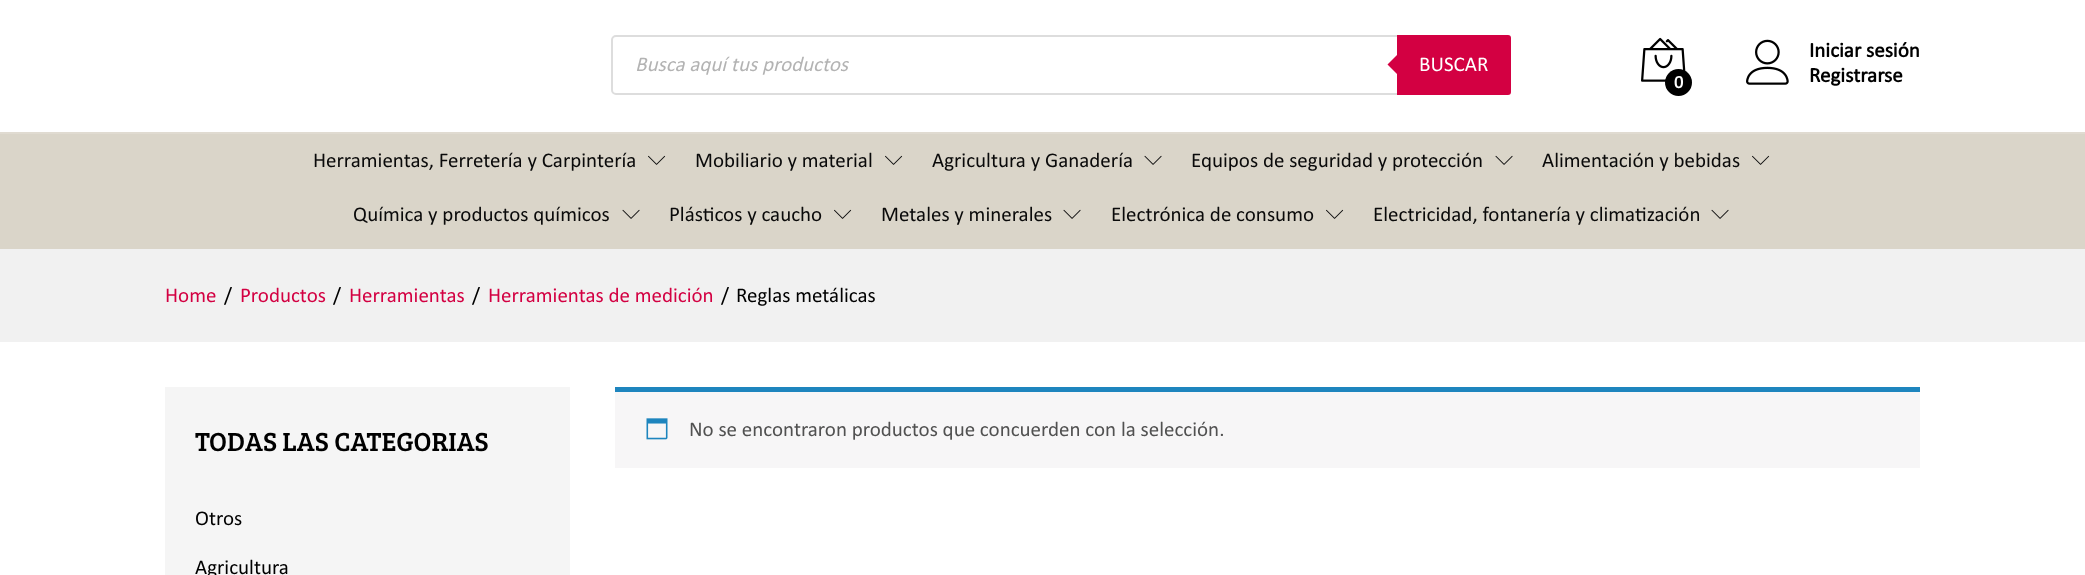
(async () => {
  const canvas = document.querySelector("canvas");
  canvas.width = 2085;
  canvas.height = 575;
  const ctx = canvas.getContext("2d");
  ctx.miterLimit = 4;
  ctx.fontKerning = "normal";
  async function loadImage(src) {
    const img = new Image();
    img.src = src;
    await img.decode();
    return img;
  }
  let path;

  ctx.fillStyle = "#ffffff";
  ctx.fillRect(0, 0, 2085, 575);
  ctx.beginPath();
  ctx.roundRect(612, 36, 898, 58, 4);
  ctx.strokeStyle = "#dddddd";
  ctx.lineWidth = 2;
  ctx.stroke();
  ctx.fillStyle = "#d30042";
  ctx.beginPath();
  ctx.roundRect(1397, 35, 114, 60, [0, 3, 3, 0]);
  ctx.fill();
  path = new Path2D("M1399.5 52.5V76.5L1387.5 64.5Z");
  ctx.fill(path);
  ctx.drawImage(await loadImage("img/1.png"), 1641, 37, 45, 45);
  ctx.fillStyle = "#000000";
  ctx.beginPath();
  ctx.arc(1678.5, 82.5, 13.5, 0, Math.PI * 2);
  ctx.fill();
  ctx.drawImage(await loadImage("img/2.png"), 1746, 39, 43, 46);
  ctx.fillStyle = "#dad5c9";
  ctx.fillRect(0, 134, 2085, 115);
  ctx.fillStyle = "#e0dbd1";
  ctx.fillRect(0, 132, 2085, 2);
  ctx.drawImage(await loadImage("img/3.png"), 648, 155, 18, 10);
  ctx.drawImage(await loadImage("img/3.png"), 885, 155, 18, 10);
  ctx.drawImage(await loadImage("img/4.png"), 1144, 155, 18, 10);
  ctx.drawImage(await loadImage("img/4.png"), 1495, 155, 18, 10);
  ctx.drawImage(await loadImage("img/3.png"), 1752, 155, 18, 10);
  ctx.drawImage(await loadImage("img/4.png"), 622, 209, 18, 10);
  ctx.drawImage(await loadImage("img/3.png"), 834, 209, 18, 10);
  ctx.drawImage(await loadImage("img/4.png"), 1063, 209, 18, 10);
  ctx.drawImage(await loadImage("img/3.png"), 1326, 209, 18, 10);
  ctx.drawImage(await loadImage("img/4.png"), 1711, 209, 18, 10);
  for (const [x, y, w, h, color] of [
    [0, 249, 2085, 93, "#f1f1f1"],
    [165, 387, 405, 188, "#f5f5f5"],
    [615, 392, 1305, 76, "#f7f6f7"],
    [615, 387, 1305, 5, "#1e85be"],
  ]) {
    ctx.fillStyle = color;
    ctx.fillRect(x, y, w, h);
  }
  ctx.drawImage(await loadImage("img/5.png"), 646, 418, 22, 22);
  ctx.font = "italic 21px Calibri";
  ctx.fillStyle = "#b3b3b3";
  ctx.fillText("Busca aquí tus productos", 635, 71);
  ctx.font = "21px Calibri";
  ctx.fillStyle = "#ffffff";
  ctx.fillText("BUSCAR", 1419, 71);
  ctx.font = "bold 18px Calibri";
  ctx.fillText("0", 1674, 88);
  ctx.font = "bold 21px Calibri";
  ctx.fillStyle = "#000000";
  ctx.fillText("Iniciar sesión", 1809, 57);
  ctx.fillText("Registrarse", 1809, 82);
  ctx.font = "21px Calibri";
  ctx.fillStyle = "#0a0a0a";
  for (const [text, x, y] of [
    ["Herramientas, Ferretería y Carpintería", 313, 167],
    ["Mobiliario y material", 695, 167],
    ["Agricultura y Ganadería", 932, 167],
    ["Equipos de seguridad y protección", 1191, 167],
    ["Alimentación y bebidas", 1542, 167],
    ["Química y productos químicos", 353, 221],
    ["Plásticos y caucho", 669, 221],
    ["Metales y minerales", 881, 221],
    ["Electrónica de consumo", 1111, 221],
    ["Electricidad, fontanería y climatización", 1373, 221],
  ]) {
    ctx.fillText(text, x, y);
  }
  ctx.fillStyle = "#d30042";
  ctx.fillText("Home", 165, 302);
  ctx.fillStyle = "#000000";
  ctx.fillText("/", 224, 302);
  ctx.fillStyle = "#d30042";
  ctx.fillText("Productos", 240, 302);
  ctx.fillStyle = "#000000";
  ctx.fillText("/", 333, 302);
  ctx.fillStyle = "#d30042";
  ctx.fillText("Herramientas", 349, 302);
  ctx.fillStyle = "#000000";
  ctx.fillText("/", 472, 302);
  ctx.fillStyle = "#d30042";
  ctx.fillText("Herramientas de medición", 488, 302);
  ctx.fillStyle = "#000000";
  ctx.fillText("/", 721, 302);
  ctx.fillText("Reglas metálicas", 736, 302);
  ctx.font = "27px Bree Serif";
  ctx.fillText("TODAS LAS CATEGORIAS", 195, 451);
  ctx.font = "21px Calibri";
  ctx.fillText("Otros", 195, 525);
  ctx.fillText("Agricultura", 195, 574);
  ctx.fillStyle = "#515151";
  ctx.fillText("No se encontraron productos que concuerden con la selección.", 689, 436);
})();
